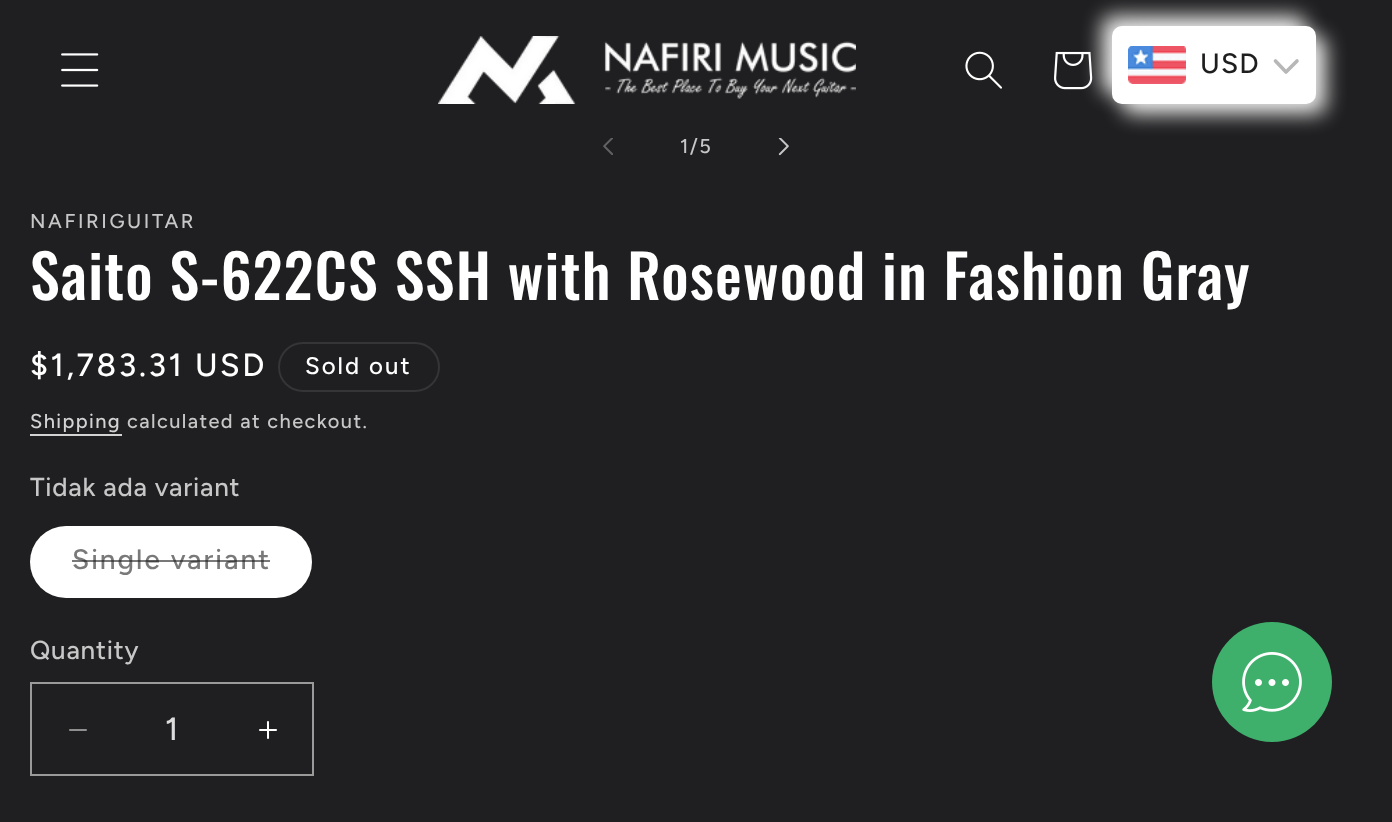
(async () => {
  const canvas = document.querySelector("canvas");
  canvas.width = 1392;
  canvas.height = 822;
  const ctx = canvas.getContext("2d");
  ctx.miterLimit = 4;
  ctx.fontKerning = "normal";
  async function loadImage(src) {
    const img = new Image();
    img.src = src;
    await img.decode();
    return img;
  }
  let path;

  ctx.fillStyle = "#1f1f21";
  ctx.fillRect(0, 0, 1392, 822);
  ctx.drawImage(await loadImage("img/1.png"), 61, 53, 38, 34);
  ctx.drawImage(await loadImage("img/2.png"), 438, 36, 418, 68);
  ctx.drawImage(await loadImage("img/3.png"), 965, 51, 37, 38);
  ctx.drawImage(await loadImage("img/4.png"), 1054, 51, 39, 39);
  ctx.fillStyle = "#e8e8e8";
  ctx.filter = "blur(10px)";
  ctx.beginPath();
  ctx.roundRect(1102, 16, 204, 78, 10);
  ctx.fill();
  ctx.filter = "none";
  ctx.filter = "blur(10px)";
  ctx.beginPath();
  ctx.roundRect(1122, 36, 204, 78, 10);
  ctx.fill();
  ctx.filter = "none";
  ctx.fillStyle = "#ffffff";
  ctx.beginPath();
  ctx.roundRect(1112, 26, 204, 78, 10);
  ctx.fill();
  ctx.drawImage(await loadImage("img/5.png"), 1128, 46, 58, 38);
  path = new Path2D("M1275.5 61L1286 72L1297 61");
  ctx.strokeStyle = "#b7b7b7";
  ctx.lineWidth = 3.6;
  ctx.lineCap = "round";
  ctx.lineJoin = "round";
  ctx.stroke(path);
  ctx.drawImage(await loadImage("img/6.png"), 603, 138, 10, 17);
  ctx.drawImage(await loadImage("img/7.png"), 778, 138, 11, 18);
  ctx.beginPath();
  ctx.roundRect(279, 343, 160, 48, 24);
  ctx.strokeStyle = "#353537";
  ctx.lineWidth = 2;
  ctx.lineJoin = "miter";
  ctx.stroke();
  ctx.fillStyle = "#d3d3d4";
  ctx.fillRect(30, 434, 92, 2);
  ctx.fillStyle = "#ffffff";
  ctx.beginPath();
  ctx.roundRect(30, 526, 282, 72, 36);
  ctx.fill();
  ctx.beginPath();
  ctx.roundRect(31, 527, 280, 70, 35);
  ctx.strokeStyle = "rgba(255, 255, 255, 0.1)";
  ctx.stroke();
  ctx.drawImage(await loadImage("img/8.png"), 69, 729, 18, 2);
  ctx.drawImage(await loadImage("img/9.png"), 259, 721, 18, 18);
  ctx.strokeStyle = "#9a9a9b";
  ctx.strokeRect(31, 683, 282, 92);
  ctx.fillStyle = "#3faf6c";
  path = new Path2D("M1272 742C1239 742 1212 715 1212 682C1212 649 1239 622 1272 622C1305 622 1332 649 1332 682C1332 715 1305 742 1272 742Z");
  ctx.fill(path);
  ctx.drawImage(await loadImage("img/10.png"), 1242, 652, 60, 60);
  ctx.letterSpacing = "1.2px";
  ctx.font = "500 28px Figtree";
  ctx.fillStyle = "#1e1e1e";
  ctx.fillText("USD", 1200, 73);
  ctx.letterSpacing = "1.4px";
  ctx.font = "500 20px Figtree";
  ctx.fillStyle = "#c7c7c8";
  ctx.fillText("1/5", 680, 153);
  ctx.letterSpacing = "2.6px";
  ctx.fillText("NAFIRIGUITAR", 30, 228);
  ctx.letterSpacing = "1.2px";
  ctx.font = "500 60px Oswald";
  ctx.fillStyle = "#ffffff";
  ctx.fillText("Saito S-622CS SSH with Rosewood in Fashion Gray", 30, 300);
  ctx.letterSpacing = "2.6px";
  ctx.font = "500 32px Figtree";
  ctx.fillText("$1,783.31 USD", 30, 376);
  ctx.letterSpacing = "2px";
  ctx.font = "500 24px Figtree";
  ctx.fillText("Sold out", 305, 374);
  ctx.letterSpacing = "1.4px";
  ctx.font = "500 20px Figtree";
  ctx.fillStyle = "#d3d3d4";
  ctx.fillText("Shipping", 30, 428);
  ctx.fillStyle = "#c7c7c8";
  ctx.fillText("calculated at checkout.", 127, 428);
  ctx.letterSpacing = "0.75px";
  ctx.font = "500 26px Figtree";
  ctx.fillText("Tidak ada variant", 30, 496);
  ctx.letterSpacing = "2px";
  ctx.font = "500 28px Figtree";
  ctx.fillStyle = "#79797a";
  ctx.fillText("Single variant", 72, 569);
  ctx.fillStyle = "rgba(31, 31, 33, 0.6)";
  ctx.fillRect(72, 560, 198, 2);
  ctx.letterSpacing = "0.75px";
  ctx.font = "500 26px Figtree";
  ctx.fillStyle = "#c7c7c8";
  ctx.fillText("Quantity", 30, 659);
  ctx.letterSpacing = "0px";
  ctx.font = "500 32px Figtree";
  ctx.fillStyle = "#ddddde";
  ctx.fillText("1", 165, 740);
})();
